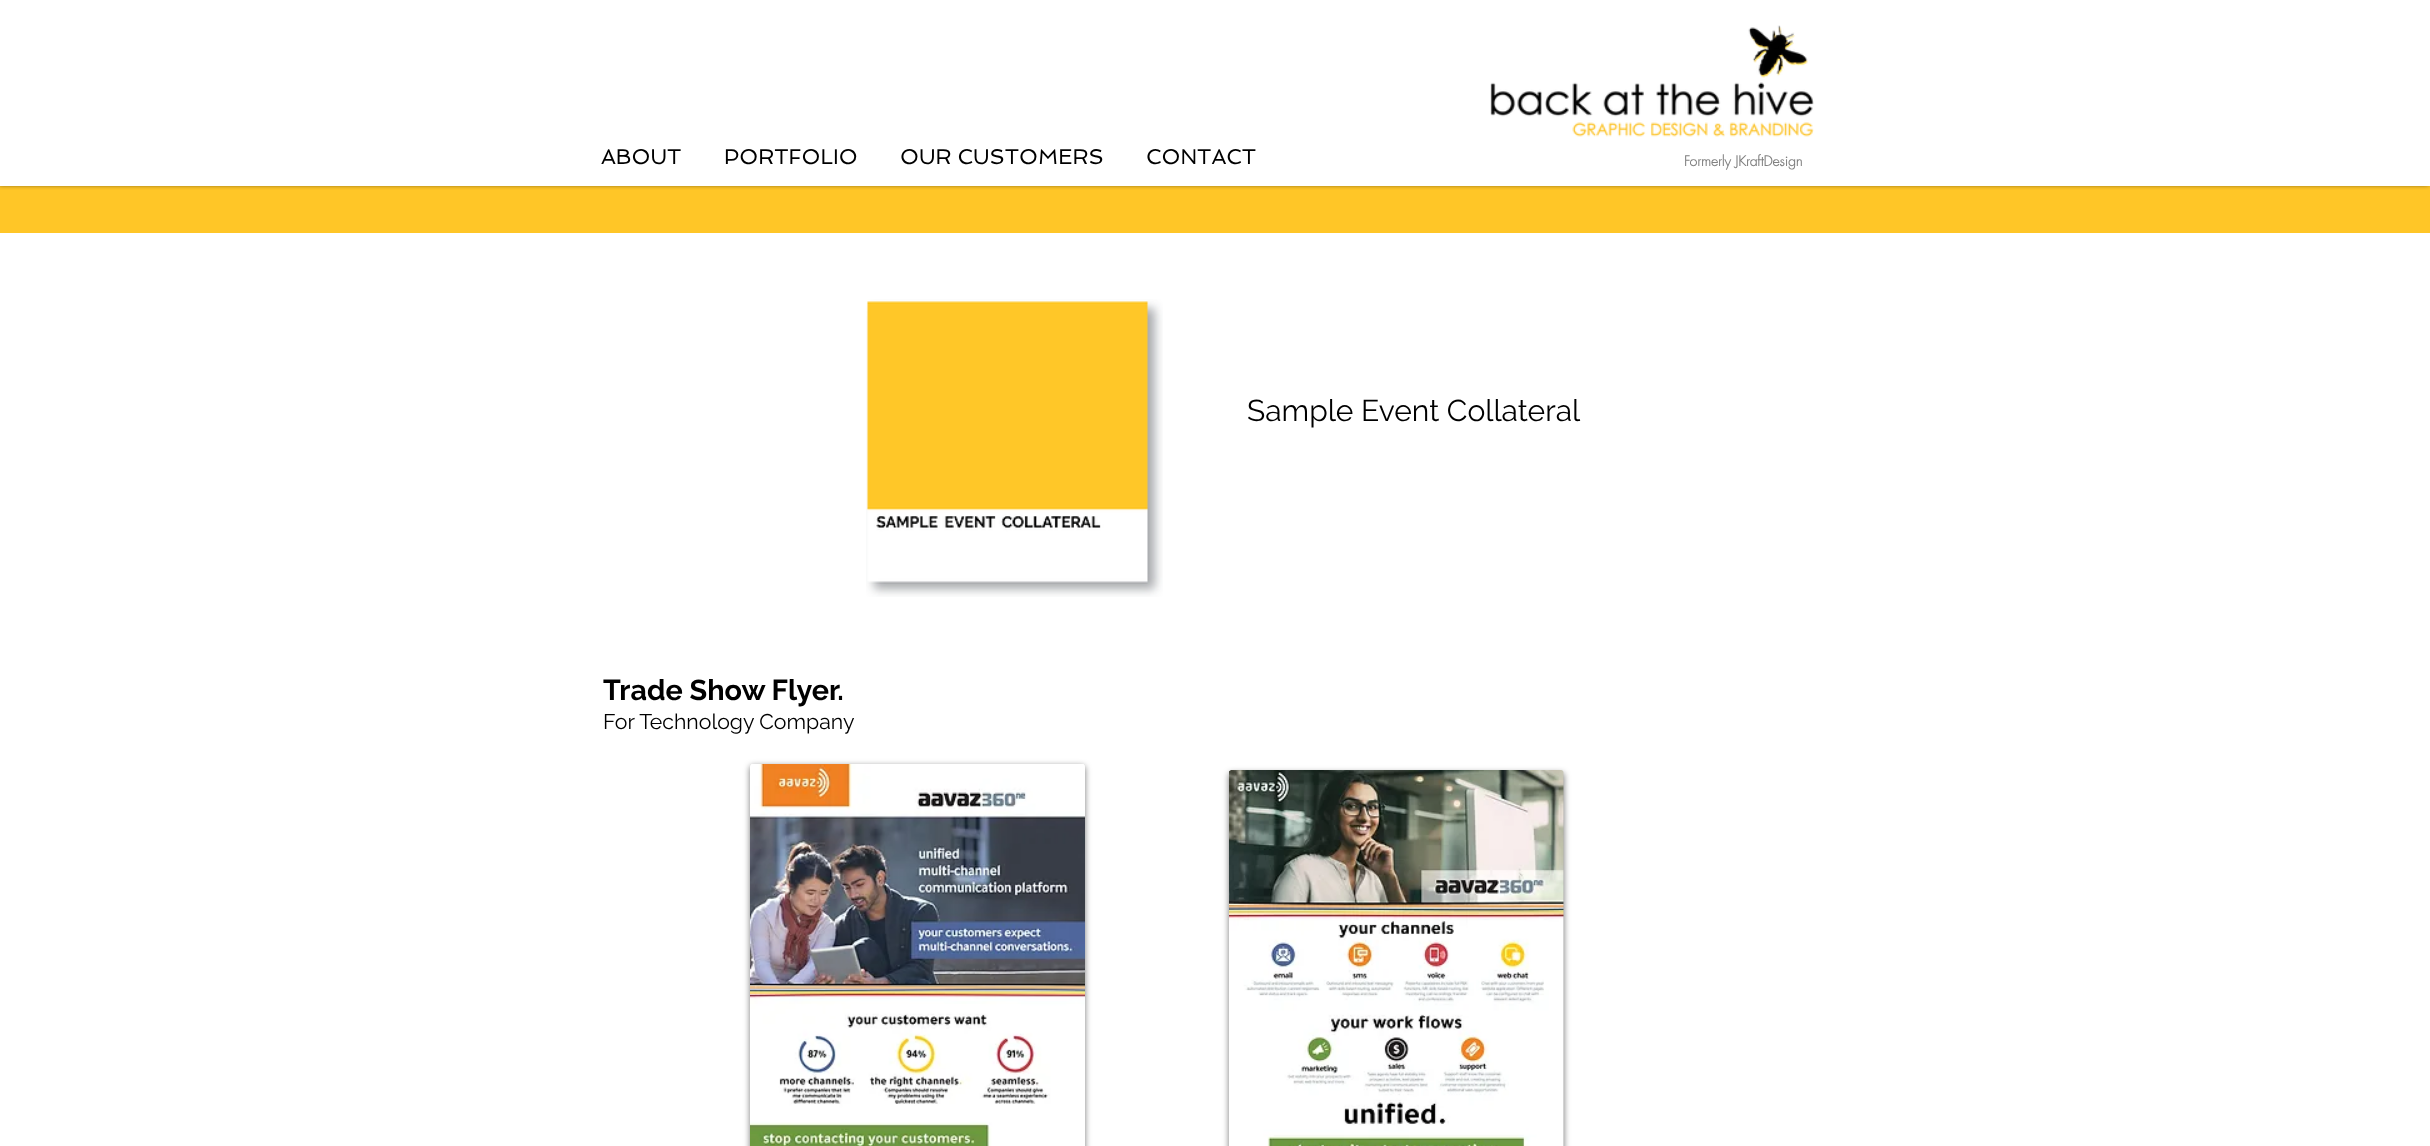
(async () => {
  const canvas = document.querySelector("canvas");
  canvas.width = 2430;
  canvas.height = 1146;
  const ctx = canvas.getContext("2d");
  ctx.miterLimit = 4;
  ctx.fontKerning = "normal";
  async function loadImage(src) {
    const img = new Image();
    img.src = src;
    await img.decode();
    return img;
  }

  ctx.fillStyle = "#ffffff";
  ctx.fillRect(0, 0, 2430, 1146);
  ctx.fillStyle = "#ffc627";
  ctx.fillRect(0, 186, 2430, 47);
  ctx.save();
  ctx.beginPath();
  ctx.rect(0, 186, 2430, 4);
  ctx.clip();
  ctx.fillStyle = "rgba(0, 0, 0, 0.6)";
  ctx.filter = "blur(2.5px)";
  ctx.beginPath();
  ctx.rect(-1, -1, 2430, 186);
  ctx.fill();
  ctx.filter = "none";
  ctx.restore();
  ctx.drawImage(await loadImage("img/1.png"), 1490, 25, 324, 112);
  ctx.drawImage(await loadImage("img/2.png"), 866, 299, 297, 298);
  ctx.fillStyle = "rgba(0, 0, 0, 0.53)";
  ctx.filter = "blur(3px)";
  ctx.beginPath();
  ctx.roundRect(750, 766, 335, 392, 2.5);
  ctx.fill();
  ctx.filter = "none";
  ctx.drawImage(await loadImage("img/3.png"), 750, 764, 335, 382);
  ctx.filter = "blur(3px)";
  ctx.beginPath();
  ctx.roundRect(1229, 773, 335, 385, 2.5);
  ctx.fill();
  ctx.filter = "none";
  ctx.drawImage(await loadImage("img/4.png"), 1229, 770, 335, 376);
  ctx.font = "21.25px Spinnaker";
  ctx.fillStyle = "#000000";
  for (const [text, x, y] of [
    ["ABOUT", 601, 164],
    ["PORTFOLIO", 724, 164],
    ["OUR CUSTOMERS", 900, 164],
    ["CONTACT", 1146, 164],
  ]) {
    ctx.fillText(text, x, y);
  }
  ctx.font = "bold 13.75px futura";
  ctx.fillStyle = "#818181";
  ctx.fillText("Formerly JKraftDesign", 1684, 166);
  ctx.font = "30px Raleway";
  ctx.fillStyle = "#000000";
  ctx.fillText("Sample Event Collateral", 1247, 421);
  ctx.font = "bold 28.75px Raleway";
  ctx.fillText("Trade Show Flyer.", 603, 700);
  ctx.font = "21.25px Raleway";
  ctx.fillText("For Technology Company", 603, 729);
})();
